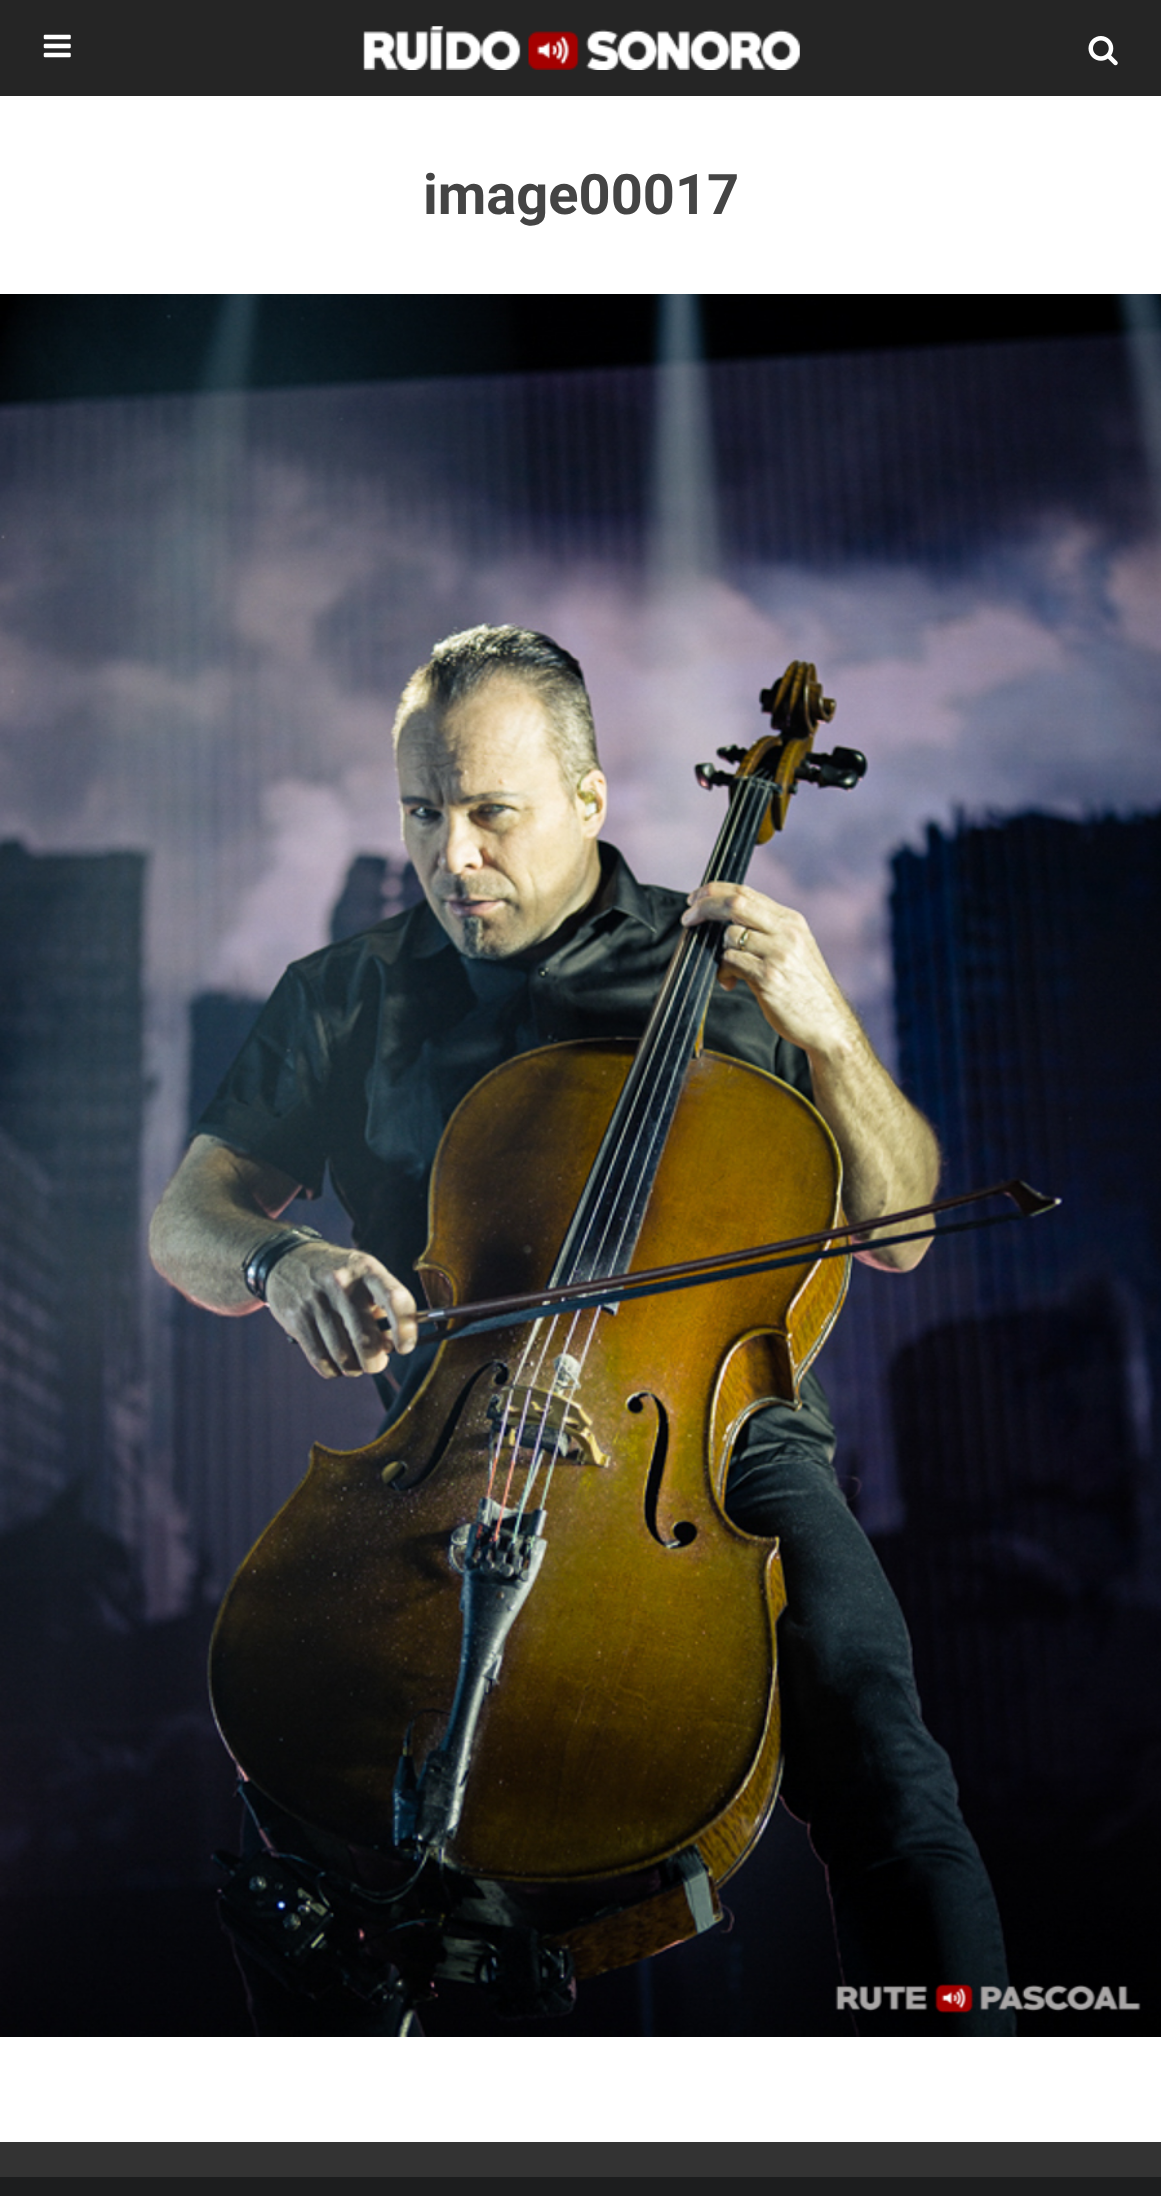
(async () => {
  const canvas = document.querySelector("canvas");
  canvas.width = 1161;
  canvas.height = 2196;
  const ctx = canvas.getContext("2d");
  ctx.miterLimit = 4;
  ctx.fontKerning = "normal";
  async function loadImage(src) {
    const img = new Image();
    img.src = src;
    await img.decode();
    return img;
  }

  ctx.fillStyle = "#ffffff";
  ctx.fillRect(0, 0, 1161, 2196);
  ctx.fillStyle = "#252525";
  ctx.fillRect(0, 0, 1161, 96);
  ctx.drawImage(await loadImage("img/1.png"), 43, 34, 28, 24);
  ctx.drawImage(await loadImage("img/2.png"), 363, 26, 437, 44);
  ctx.drawImage(await loadImage("img/3.png"), 1088, 36, 30, 30);
  ctx.drawImage(await loadImage("img/4.png"), 0, 294, 1161, 1743);
  ctx.fillStyle = "#1c1d1e";
  ctx.fillRect(0, 2177, 1161, 19);
  ctx.fillStyle = "#333333";
  ctx.fillRect(0, 2142, 1161, 35);
  ctx.font = "bold 56px Roboto";
  ctx.fillStyle = "#444444";
  ctx.fillText("image00017", 423, 214);
})();
